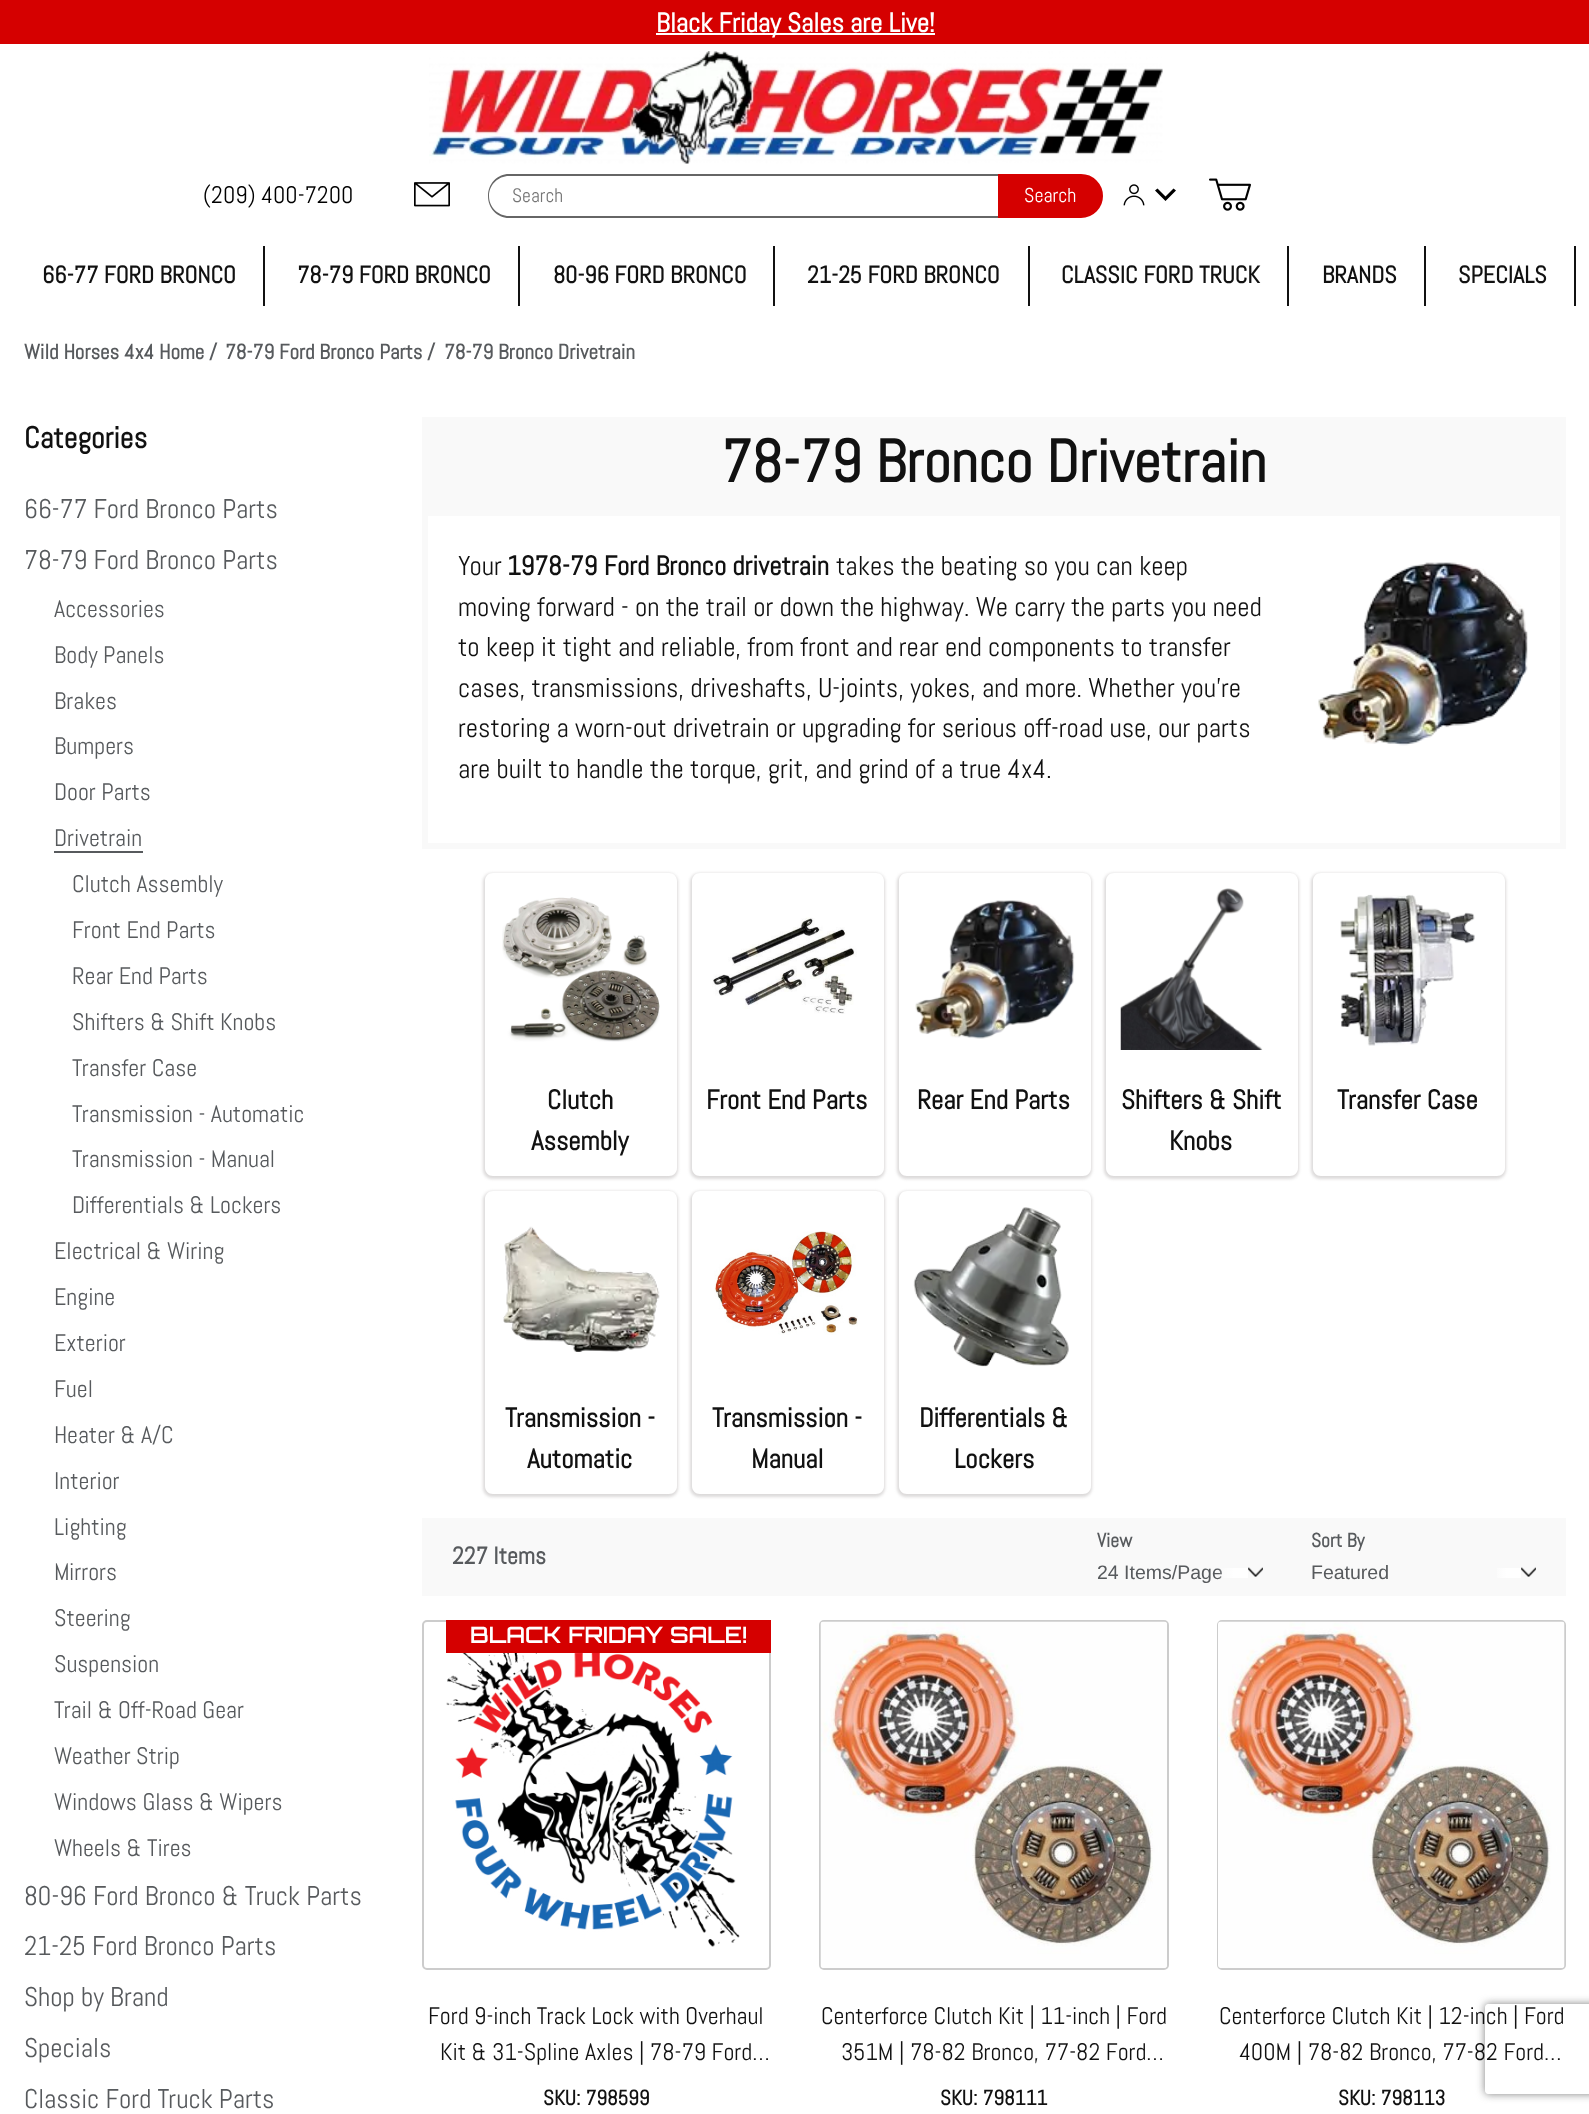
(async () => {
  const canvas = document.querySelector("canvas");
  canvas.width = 1589;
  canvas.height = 2114;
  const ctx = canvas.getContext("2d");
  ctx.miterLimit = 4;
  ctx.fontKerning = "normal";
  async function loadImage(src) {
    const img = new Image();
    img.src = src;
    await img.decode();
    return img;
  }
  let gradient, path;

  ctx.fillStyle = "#ffffff";
  ctx.fillRect(0, 0, 1589, 2114);
  ctx.fillStyle = "#d50000";
  ctx.fillRect(0, 0, 1589, 44);
  ctx.fillStyle = "#ffffff";
  ctx.fillRect(656, 33, 279, 2);
  ctx.drawImage(await loadImage("img/1.png"), 429, 51, 734, 113);
  ctx.drawImage(await loadImage("img/2.png"), 414, 182, 36, 25);
  ctx.fillStyle = "#666666";
  path = new Path2D("M509 174H998V218H509C497 218 488 208 488 196C488 184 497 174 509 174ZM509 176H998V216H509C498 216 489 207 489 196C489 185 498 176 509 176Z");
  ctx.fill(path, "evenodd");
  ctx.fillStyle = "#d50000";
  ctx.beginPath();
  ctx.roundRect(999, 175, 103, 42, [0, 21, 21, 0]);
  ctx.fill();
  ctx.strokeStyle = "#d50000";
  ctx.lineWidth = 2;
  ctx.stroke();
  ctx.drawImage(await loadImage("img/3.png"), 1123, 184, 22, 22);
  ctx.fillStyle = "#000000";
  path = new Path2D("M1157.5 188.5L1155 190.5L1165.5 201L1176 190.5L1173.5 188.5L1165.5 196.5Z");
  ctx.fill(path);
  ctx.drawImage(await loadImage("img/4.png"), 1209, 178, 42, 33);
  for (const [x, y, w, h, color] of [
    [263, 246, 2, 60, "#111111"],
    [518, 246, 2, 60, "#111111"],
    [773, 246, 2, 60, "#111111"],
    [1028, 246, 2, 60, "#111111"],
    [1287, 246, 2, 60, "#111111"],
    [1424, 246, 2, 60, "#111111"],
    [1574, 246, 2, 60, "#111111"],
    [54, 851, 89, 2, "#575a5d"],
    [422, 417, 1144, 93, "#f9f9f9"],
  ]) {
    ctx.fillStyle = color;
    ctx.fillRect(x, y, w, h);
  }
  ctx.strokeStyle = "#f9f9f9";
  ctx.lineWidth = 6;
  ctx.strokeRect(425, 513, 1138, 333);
  ctx.drawImage(await loadImage("img/5.png"), 1318, 562, 210, 184);
  ctx.save();
  path = new Path2D("M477 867H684V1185H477ZM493 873H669C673.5 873 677 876.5 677 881V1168C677 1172.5 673.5 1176 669 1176H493C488.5 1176 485 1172.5 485 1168V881C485 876.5 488.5 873 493 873Z");
  ctx.clip(path, "evenodd");
  ctx.fillStyle = "#dcdada";
  ctx.filter = "blur(1.5px)";
  ctx.beginPath();
  ctx.roundRect(483, 873, 195, 306, 9);
  ctx.fill();
  ctx.filter = "none";
  ctx.restore();
  ctx.drawImage(await loadImage("img/6.png"), 502, 897, 158, 145);
  ctx.save();
  path = new Path2D("M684 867H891V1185H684ZM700 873H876C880.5 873 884 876.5 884 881V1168C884 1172.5 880.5 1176 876 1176H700C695.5 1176 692 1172.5 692 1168V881C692 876.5 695.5 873 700 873Z");
  ctx.clip(path, "evenodd");
  ctx.fillStyle = "#dcdada";
  ctx.filter = "blur(1.5px)";
  ctx.beginPath();
  ctx.roundRect(690, 873, 195, 306, 9);
  ctx.fill();
  ctx.filter = "none";
  ctx.restore();
  ctx.drawImage(await loadImage("img/7.png"), 712, 917, 145, 97);
  ctx.save();
  path = new Path2D("M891 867H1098V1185H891ZM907 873H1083C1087.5 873 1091 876.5 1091 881V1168C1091 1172.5 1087.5 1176 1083 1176H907C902.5 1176 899 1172.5 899 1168V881C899 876.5 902.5 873 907 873Z");
  ctx.clip(path, "evenodd");
  ctx.fillStyle = "#dcdada";
  ctx.filter = "blur(1.5px)";
  ctx.beginPath();
  ctx.roundRect(897, 873, 195, 306, 9);
  ctx.fill();
  ctx.filter = "none";
  ctx.restore();
  ctx.drawImage(await loadImage("img/8.png"), 915, 900, 160, 139);
  ctx.save();
  path = new Path2D("M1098 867H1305V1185H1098ZM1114 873H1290C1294.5 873 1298 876.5 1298 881V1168C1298 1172.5 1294.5 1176 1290 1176H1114C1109.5 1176 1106 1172.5 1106 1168V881C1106 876.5 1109.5 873 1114 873Z");
  ctx.clip(path, "evenodd");
  ctx.fillStyle = "#dcdada";
  ctx.filter = "blur(1.5px)";
  ctx.beginPath();
  ctx.roundRect(1104, 873, 195, 306, 9);
  ctx.fill();
  ctx.filter = "none";
  ctx.restore();
  ctx.drawImage(await loadImage("img/9.png"), 1120, 888, 143, 162);
  ctx.save();
  path = new Path2D("M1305 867H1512V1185H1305ZM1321 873H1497C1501.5 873 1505 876.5 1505 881V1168C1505 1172.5 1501.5 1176 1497 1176H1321C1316.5 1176 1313 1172.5 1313 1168V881C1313 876.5 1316.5 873 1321 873Z");
  ctx.clip(path, "evenodd");
  ctx.fillStyle = "#dcdada";
  ctx.filter = "blur(1.5px)";
  ctx.beginPath();
  ctx.roundRect(1311, 873, 195, 306, 9);
  ctx.fill();
  ctx.filter = "none";
  ctx.restore();
  ctx.drawImage(await loadImage("img/10.png"), 1340, 894, 135, 152);
  ctx.save();
  path = new Path2D("M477 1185H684V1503H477ZM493 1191H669C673.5 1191 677 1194.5 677 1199V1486C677 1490.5 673.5 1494 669 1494H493C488.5 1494 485 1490.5 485 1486V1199C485 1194.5 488.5 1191 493 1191Z");
  ctx.clip(path, "evenodd");
  ctx.fillStyle = "#dcdada";
  ctx.filter = "blur(1.5px)";
  ctx.beginPath();
  ctx.roundRect(483, 1191, 195, 306, 9);
  ctx.fill();
  ctx.filter = "none";
  ctx.restore();
  ctx.drawImage(await loadImage("img/11.png"), 503, 1226, 157, 126);
  ctx.save();
  path = new Path2D("M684 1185H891V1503H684ZM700 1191H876C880.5 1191 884 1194.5 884 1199V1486C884 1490.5 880.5 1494 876 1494H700C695.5 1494 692 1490.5 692 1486V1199C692 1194.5 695.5 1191 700 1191Z");
  ctx.clip(path, "evenodd");
  ctx.fillStyle = "#dcdada";
  ctx.filter = "blur(1.5px)";
  ctx.beginPath();
  ctx.roundRect(690, 1191, 195, 306, 9);
  ctx.fill();
  ctx.filter = "none";
  ctx.restore();
  ctx.drawImage(await loadImage("img/12.png"), 714, 1231, 144, 104);
  ctx.save();
  path = new Path2D("M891 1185H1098V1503H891ZM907 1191H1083C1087.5 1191 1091 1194.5 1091 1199V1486C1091 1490.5 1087.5 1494 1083 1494H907C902.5 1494 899 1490.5 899 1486V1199C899 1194.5 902.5 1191 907 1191Z");
  ctx.clip(path, "evenodd");
  ctx.fillStyle = "#dcdada";
  ctx.filter = "blur(1.5px)";
  ctx.beginPath();
  ctx.roundRect(897, 1191, 195, 306, 9);
  ctx.fill();
  ctx.filter = "none";
  ctx.restore();
  ctx.drawImage(await loadImage("img/13.png"), 913, 1207, 156, 160);
  ctx.fillRect(422, 1518, 1144, 78);
  ctx.drawImage(await loadImage("img/14.png"), 1248, 1567, 15, 10);
  gradient = ctx.createLinearGradient(1530, 1573, 1491, 1573);
  gradient.addColorStop(0.6, "#ffffff");
  gradient.addColorStop(1, "#f9f9f9");
  ctx.fillStyle = gradient;
  ctx.fillRect(1497, 1568, 24, 10);
  ctx.drawImage(await loadImage("img/14.png"), 1521, 1567, 15, 10);
  ctx.beginPath();
  ctx.roundRect(423, 1621, 347, 348, 4);
  ctx.strokeStyle = "#cccccc";
  ctx.lineWidth = 2;
  ctx.stroke();
  ctx.drawImage(await loadImage("img/15.png"), 446, 1653, 294, 294);
  ctx.fillStyle = "#d50000";
  ctx.fillRect(446, 1620, 325, 33);
  ctx.beginPath();
  ctx.roundRect(820, 1621, 348, 348, 4);
  ctx.stroke();
  ctx.drawImage(await loadImage("img/16.png"), 820, 1621, 347, 347);
  ctx.beginPath();
  ctx.roundRect(1218, 1621, 347, 348, 4);
  ctx.stroke();
  ctx.drawImage(await loadImage("img/17.png"), 1218, 1621, 347, 347);
  ctx.save();
  path = new Path2D("M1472 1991H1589V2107H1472ZM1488 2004H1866C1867.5 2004 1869 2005.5 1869 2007V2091C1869 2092.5 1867.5 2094 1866 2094H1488C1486.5 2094 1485 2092.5 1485 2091V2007C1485 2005.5 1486.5 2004 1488 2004Z");
  ctx.clip(path, "evenodd");
  ctx.fillStyle = "#808080";
  ctx.filter = "blur(4px)";
  ctx.beginPath();
  ctx.roundRect(1485, 2004, 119, 90, 3);
  ctx.fill();
  ctx.filter = "none";
  ctx.restore();
  ctx.font = "bold 27px Abel";
  ctx.fillStyle = "#ffffff";
  ctx.fillText("Black Friday Sales are Live!", 656, 32);
  ctx.font = "24px Abel";
  ctx.fillStyle = "#000000";
  ctx.fillText("(209) 400-7200", 203, 203);
  ctx.font = "19.5px Abel";
  ctx.fillStyle = "#757575";
  ctx.fillText("Search", 512, 202);
  ctx.font = "20px Abel";
  ctx.fillStyle = "#ffffff";
  ctx.fillText("Search", 1024, 202);
  ctx.font = "bold 24px Abel";
  ctx.fillStyle = "#111111";
  for (const [text, x, y] of [
    ["66-77 FORD BRONCO", 42, 283],
    ["78-79 FORD BRONCO", 297, 283],
    ["80-96 FORD BRONCO", 553, 283],
    ["21-25 FORD BRONCO", 807, 283],
    ["CLASSIC FORD TRUCK", 1061, 283],
    ["BRANDS", 1322, 283],
    ["SPECIALS", 1458, 283],
  ]) {
    ctx.fillText(text, x, y);
  }
  ctx.font = "bold 21px Abel";
  ctx.fillStyle = "#575a5d";
  for (const [text, x, y] of [
    ["Wild Horses 4x4 Home", 24, 359],
    ["/", 209, 359],
    ["78-79 Ford Bronco Parts", 225, 359],
    ["/", 427, 359],
    ["78-79 Bronco Drivetrain", 444, 359],
  ]) {
    ctx.fillText(text, x, y);
  }
  ctx.font = "bold 30px Abel";
  ctx.fillStyle = "#111111";
  ctx.fillText("Categories", 24, 448);
  ctx.font = "27px Abel";
  ctx.fillStyle = "#575a5d";
  ctx.fillText("66-77 Ford Bronco Parts", 24, 518);
  ctx.fillText("78-79 Ford Bronco Parts", 24, 569);
  ctx.font = "24px Abel";
  for (const [text, x, y] of [
    ["Accessories", 54, 617],
    ["Body Panels", 54, 663],
    ["Brakes", 54, 709],
    ["Bumpers", 54, 754],
    ["Door Parts", 54, 800],
    ["Drivetrain", 54, 846],
    ["Clutch Assembly", 72, 892],
    ["Front End Parts", 72, 938],
    ["Rear End Parts", 72, 984],
    ["Shifters & Shift Knobs", 72, 1030],
    ["Transfer Case", 72, 1076],
    ["Transmission - Automatic", 72, 1122],
    ["Transmission - Manual", 72, 1167],
    ["Differentials & Lockers", 72, 1213],
    ["Electrical & Wiring", 54, 1259],
    ["Engine", 54, 1305],
    ["Exterior", 54, 1351],
    ["Fuel", 54, 1397],
    ["Heater & A/C", 54, 1443],
    ["Interior", 54, 1489],
    ["Lighting", 54, 1535],
    ["Mirrors", 54, 1580],
    ["Steering", 54, 1626],
    ["Suspension", 54, 1672],
    ["Trail & Off-Road Gear", 54, 1718],
    ["Weather Strip", 54, 1764],
    ["Windows Glass & Wipers", 54, 1810],
    ["Wheels & Tires", 54, 1856],
  ]) {
    ctx.fillText(text, x, y);
  }
  ctx.font = "27px Abel";
  for (const [text, x, y] of [
    ["80-96 Ford Bronco & Truck Parts", 24, 1905],
    ["21-25 Ford Bronco Parts", 24, 1955],
    ["Shop by Brand", 24, 2006],
    ["Specials", 24, 2057],
    ["Classic Ford Truck Parts", 24, 2108],
  ]) {
    ctx.fillText(text, x, y);
  }
  ctx.font = "bold 60px Abel";
  ctx.fillStyle = "#111111";
  ctx.fillText("78-79 Bronco Drivetrain", 721, 482);
  ctx.font = "27px Abel";
  ctx.fillText("Your", 458, 575);
  ctx.font = "bold 27px Abel";
  ctx.fillText("1978-79 Ford Bronco drivetrain", 507, 575);
  ctx.font = "27px Abel";
  for (const [text, x, y] of [
    ["takes the beating so you can keep", 836, 575],
    ["moving forward - on the trail or down the highway. We carry the parts you need", 458, 616],
    ["to keep it tight and reliable, from front and rear end components to transfer", 458, 656],
    ["cases, transmissions, driveshafts, U-joints, yokes, and more. Whether you're", 458, 697],
    ["restoring a worn-out drivetrain or upgrading for serious off-road use, our parts", 458, 737],
    ["are built to handle the torque, grit, and grind of a true 4x4.", 458, 778],
  ]) {
    ctx.fillText(text, x, y);
  }
  ctx.font = "bold 27px Abel";
  for (const [text, x, y] of [
    ["Clutch", 547, 1109],
    ["Assembly", 531, 1150],
    ["Front End Parts", 706, 1109],
    ["Rear End Parts", 917, 1109],
    ["Shifters & Shift", 1121, 1109],
    ["Knobs", 1169, 1150],
    ["Transfer Case", 1337, 1109],
    ["Transmission -", 505, 1427],
    ["Automatic", 527, 1468],
    ["Transmission -", 712, 1427],
    ["Manual", 751, 1468],
    ["Differentials &", 919, 1427],
    ["Lockers", 954, 1468],
  ]) {
    ctx.fillText(text, x, y);
  }
  ctx.font = "bold 24px Abel";
  ctx.fillStyle = "#575a5d";
  ctx.fillText("227 Items", 452, 1564);
  ctx.font = "bold 19.5px Abel";
  ctx.fillText("View", 1097, 1547);
  ctx.font = "19.5px Liberation Sans";
  ctx.fillText("24 Items/Page", 1097, 1579);
  gradient = ctx.createLinearGradient(1257, 1573, 1218, 1573);
  gradient.addColorStop(0.6, "#ffffff");
  gradient.addColorStop(1, "rgba(255, 255, 255, 0)");
  ctx.fillStyle = gradient;
  ctx.fillRect(1218, 1568, 30, 10);
  ctx.font = "bold 19.5px Abel";
  ctx.fillStyle = "#575a5d";
  ctx.fillText("Sort By", 1311, 1547);
  ctx.font = "19.5px Liberation Sans";
  ctx.fillText("Featured", 1311, 1579);
  ctx.font = "600 22.5px Orbitron";
  ctx.fillStyle = "#ffffff";
  ctx.fillText("BLACK FRIDAY SALE!", 470, 1643);
  ctx.font = "24px Abel";
  ctx.fillStyle = "#111111";
  ctx.fillText("Ford 9-inch Track Lock with Overhaul", 428, 2024);
  ctx.fillText("Kit & 31-Spline Axles | 78-79 Ford…", 440, 2060);
  ctx.font = "bold 21px Abel";
  ctx.fillText("SKU: 798599", 543, 2105);
  ctx.font = "24px Abel";
  ctx.fillText("Centerforce Clutch Kit | 11-inch | Ford", 821, 2024);
  ctx.fillText("351M | 78-82 Bronco, 77-82 Ford…", 841, 2060);
  ctx.font = "bold 21px Abel";
  ctx.fillText("SKU: 798111", 940, 2105);
  ctx.font = "24px Abel";
  ctx.fillText("Centerforce Clutch Kit | 12-inch | Ford", 1219, 2024);
  ctx.fillText("400M | 78-82 Bronco, 77-82 Ford…", 1239, 2060);
  ctx.font = "bold 21px Abel";
  ctx.fillText("SKU: 798113", 1338, 2105);
})();
